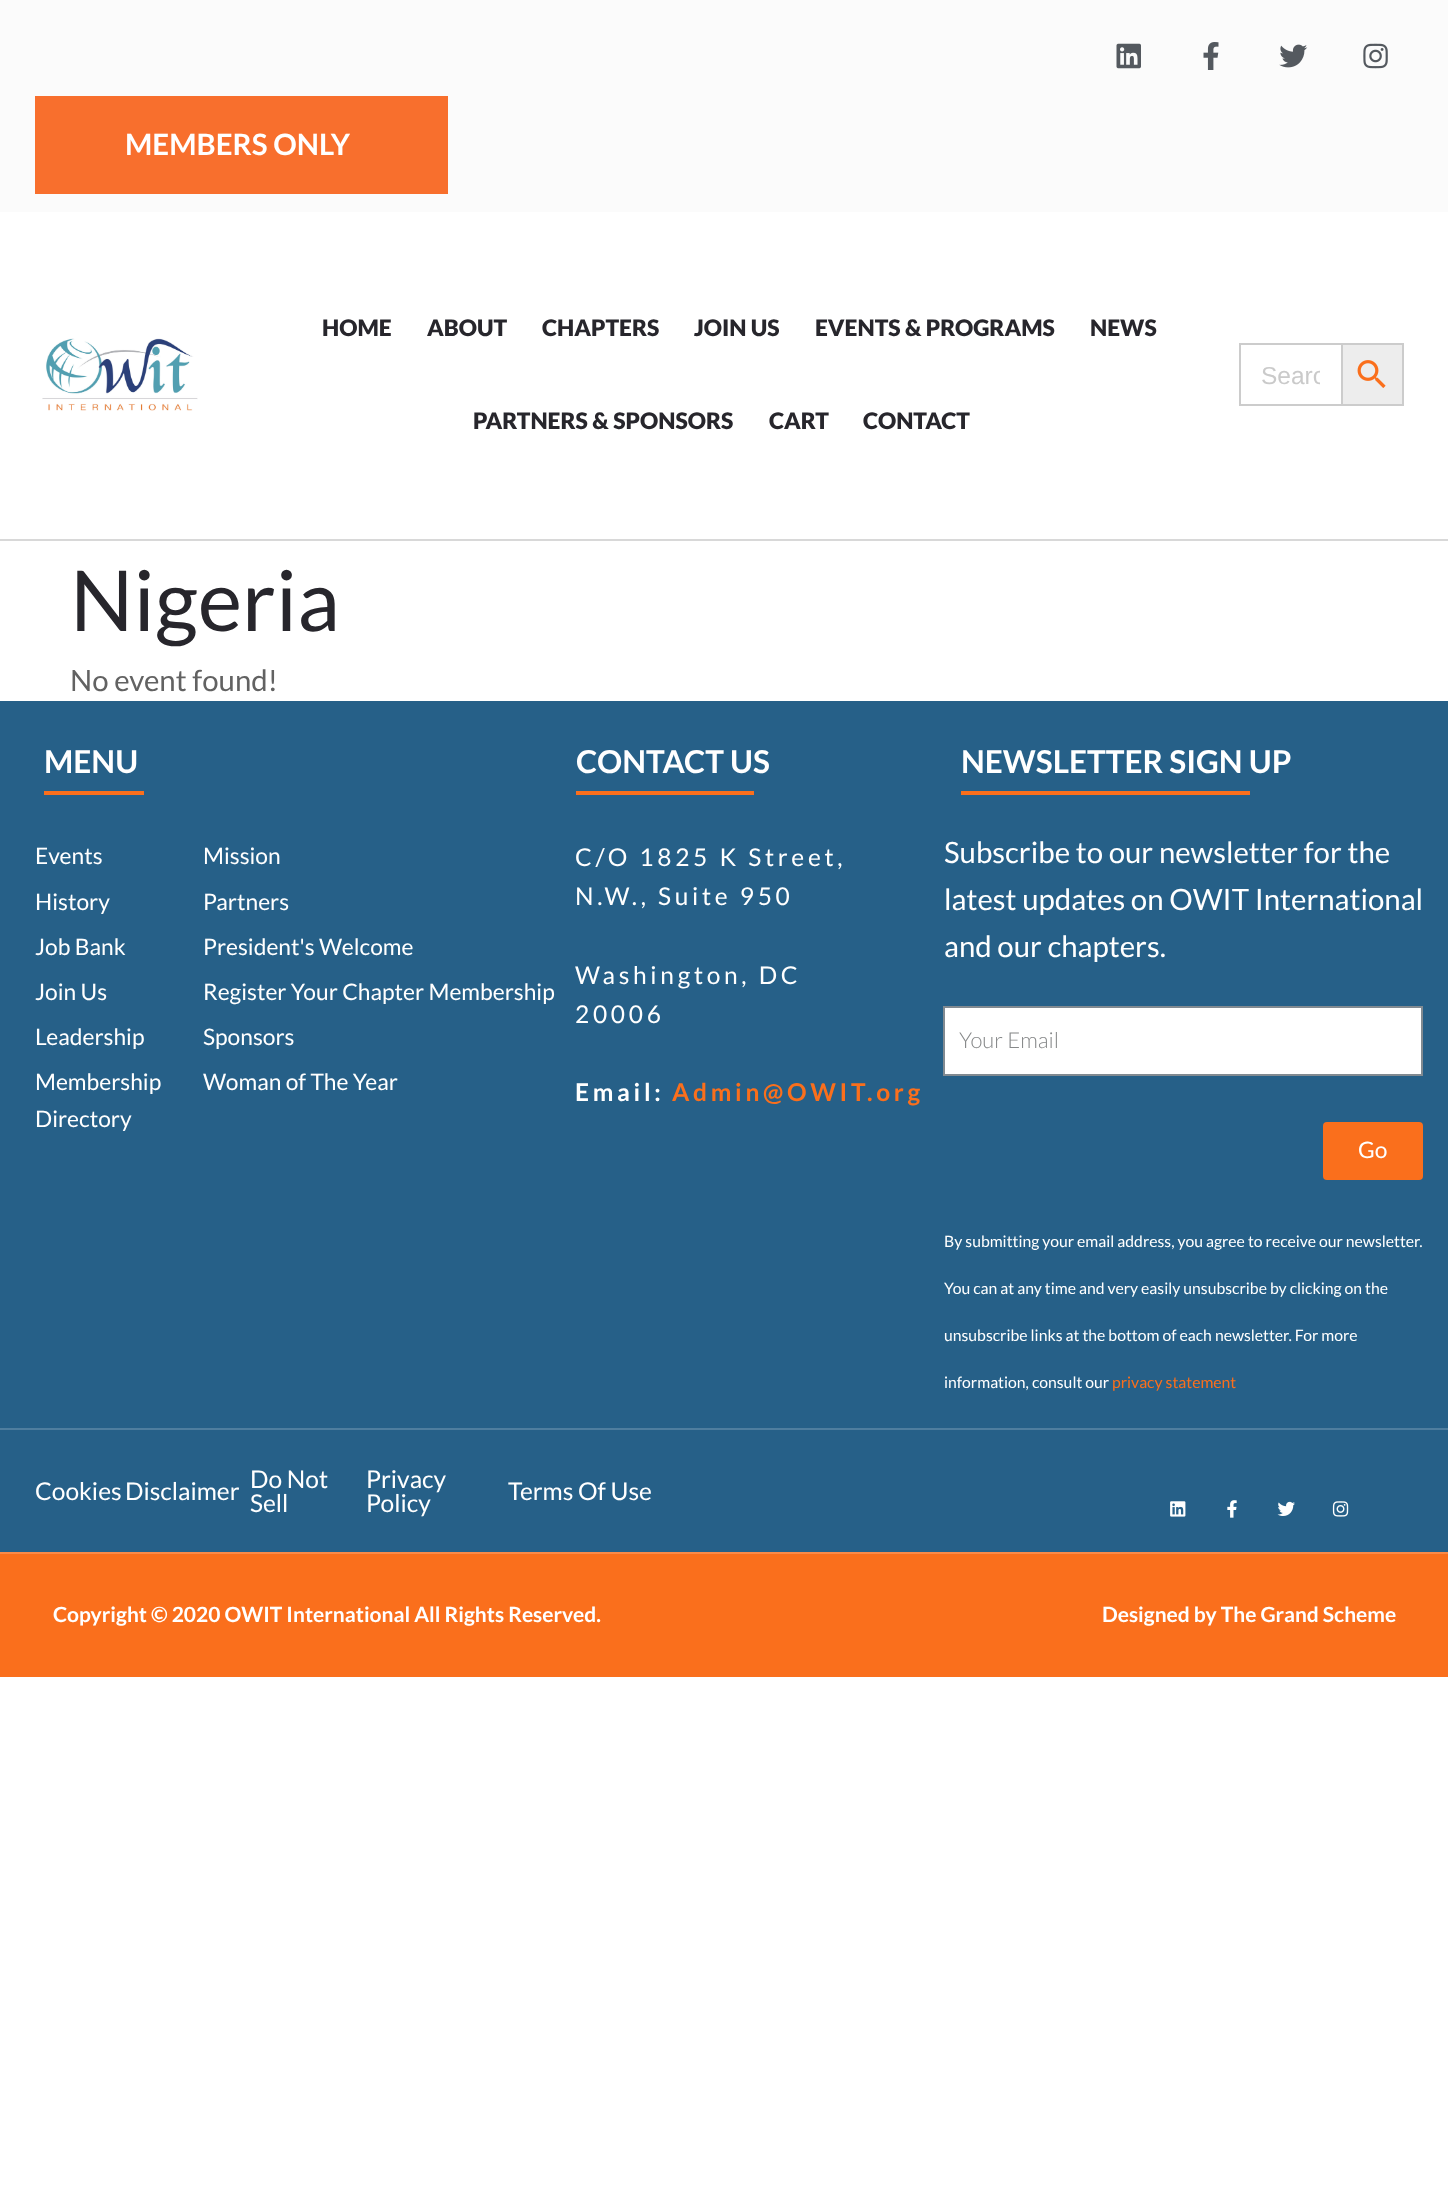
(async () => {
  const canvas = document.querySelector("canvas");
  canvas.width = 1448;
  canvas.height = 2198;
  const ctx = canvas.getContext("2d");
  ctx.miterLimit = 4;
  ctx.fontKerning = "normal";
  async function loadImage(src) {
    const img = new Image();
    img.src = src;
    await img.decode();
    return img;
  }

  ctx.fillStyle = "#ffffff";
  ctx.fillRect(0, 0, 1448, 2198);
  ctx.fillStyle = "#fbfbfb";
  ctx.fillRect(0, 0, 1448, 212);
  ctx.drawImage(await loadImage("img/1.png"), 1116, 43, 25, 26);
  ctx.drawImage(await loadImage("img/2.png"), 1203, 42, 16, 28);
  ctx.drawImage(await loadImage("img/3.png"), 1279, 44, 29, 24);
  ctx.drawImage(await loadImage("img/4.png"), 1363, 43, 25, 26);
  ctx.fillStyle = "#f86f2d";
  ctx.fillRect(35, 96, 413, 98);
  ctx.fillStyle = "#d8d8d8";
  ctx.fillRect(0, 539, 1448, 2);
  ctx.drawImage(await loadImage("img/5.png"), 42, 338, 156, 73);
  for (const [x, y, w, h, color] of [
    [1239, 343, 102, 2, "#cccccc"],
    [1239, 404, 102, 2, "#cccccc"],
    [1239, 343, 2, 63, "#cccccc"],
  ]) {
    ctx.fillStyle = color;
    ctx.fillRect(x, y, w, h);
  }
  ctx.fillStyle = "#ededed";
  ctx.beginPath();
  ctx.rect(1342, 344, 61, 61);
  ctx.fill();
  ctx.strokeStyle = "#cccccc";
  ctx.lineWidth = 2;
  ctx.stroke();
  ctx.drawImage(await loadImage("img/6.png"), 1357, 360, 29, 28);
  for (const [x, y, w, h, color] of [
    [0, 701, 1448, 727, "#266088"],
    [44, 791, 100, 4, "#fa6f1c"],
    [576, 791, 178, 4, "#fa6f1c"],
    [961, 791, 289, 4, "#fa6f1c"],
  ]) {
    ctx.fillStyle = color;
    ctx.fillRect(x, y, w, h);
  }
  ctx.fillStyle = "#ffffff";
  ctx.beginPath();
  ctx.rect(944, 1007, 478, 68);
  ctx.fill();
  ctx.strokeStyle = "#818a91";
  ctx.stroke();
  ctx.fillStyle = "#fa6f1c";
  ctx.beginPath();
  ctx.roundRect(1323, 1122, 100, 58, 4);
  ctx.fill();
  ctx.fillStyle = "#266088";
  ctx.fillRect(0, 1430, 1448, 122);
  ctx.fillStyle = "#4f7e9f";
  ctx.fillRect(0, 1428, 1448, 2);
  ctx.drawImage(await loadImage("img/7.png"), 1170, 1501, 16, 16);
  ctx.drawImage(await loadImage("img/8.png"), 1227, 1500, 10, 18);
  ctx.drawImage(await loadImage("img/9.png"), 1277, 1501, 18, 15);
  ctx.drawImage(await loadImage("img/10.png"), 1332, 1501, 17, 16);
  ctx.fillStyle = "#fa6f1c";
  ctx.fillRect(0, 1554, 1448, 123);
  ctx.fillStyle = "#fb8a47";
  ctx.fillRect(0, 1552, 1448, 2);
  ctx.font = "bold 29.4px Lato";
  ctx.fillStyle = "#ffffff";
  ctx.fillText("MEMBERS ONLY", 125, 155);
  ctx.font = "900 22.75px Lato";
  ctx.fillStyle = "#27262c";
  for (const [text, x, y] of [
    ["HOME", 322, 336],
    ["ABOUT", 427, 336],
    ["CHAPTERS", 542, 336],
    ["JOIN US", 694, 336],
    ["EVENTS & PROGRAMS", 815, 336],
    ["NEWS", 1090, 336],
    ["PARTNERS & SPONSORS", 473, 429],
    ["CART", 769, 429],
    ["CONTACT", 863, 429],
  ]) {
    ctx.fillText(text, x, y);
  }
  ctx.save();
  ctx.beginPath();
  ctx.rect(1262, 361, 58, 28);
  ctx.clip();
  ctx.font = "24.5px Liberation Sans";
  ctx.fillStyle = "#cacaca";
  ctx.fillText("Searc", 1261, 384);
  ctx.restore();
  ctx.font = "84px Lato";
  ctx.fillText("Nigeria", 70, 631);
  ctx.font = "29.4px Lato";
  ctx.fillStyle = "#626262";
  ctx.fillText("No event found!", 70, 691);
  ctx.font = "bold 31.5px Lato";
  ctx.fillStyle = "#ffffff";
  ctx.fillText("MENU", 44, 773);
  ctx.fillText("CONTACT US", 576, 773);
  ctx.font = "22.75px Lato";
  for (const [text, x, y] of [
    ["Events", 35, 864],
    ["History", 35, 910],
    ["Job Bank", 35, 955],
    ["Join Us", 35, 1000],
    ["Leadership", 35, 1045],
    ["Membership", 35, 1090],
    ["Directory", 35, 1127],
    ["Mission", 203, 864],
    ["Partners", 203, 910],
    ["President's Welcome", 203, 955],
    ["Register Your Chapter Membership", 203, 1000],
    ["Sponsors", 203, 1045],
    ["Woman of The Year", 203, 1090],
  ]) {
    ctx.fillText(text, x, y);
  }
  ctx.letterSpacing = "3.7px";
  ctx.font = "24.5px Lato";
  for (const [text, x, y] of [
    ["C/O 1825 K Street,", 575, 866],
    ["N.W., Suite 950", 575, 905],
    ["Washington, DC", 575, 984],
    ["20006", 575, 1023],
  ]) {
    ctx.fillText(text, x, y);
  }
  ctx.font = "bold 24.5px Lato";
  ctx.fillText("Email:", 575, 1101);
  ctx.fillStyle = "#fa6f1c";
  ctx.fillText("Admin@OWIT.org", 672, 1101);
  ctx.letterSpacing = "0px";
  ctx.font = "bold 31.5px Lato";
  ctx.fillStyle = "#ffffff";
  ctx.fillText("NEWSLETTER SIGN UP", 961, 773);
  ctx.font = "29.4px Lato";
  for (const [text, x, y] of [
    ["Subscribe to our newsletter for the", 944, 863],
    ["latest updates on OWIT International", 944, 910],
    ["and our chapters.", 944, 957],
  ]) {
    ctx.fillText(text, x, y);
  }
  ctx.font = "300 22px Lato";
  ctx.fillStyle = "#87898a";
  ctx.fillText("Your Email", 959, 1048);
  ctx.font = "22.75px Lato";
  ctx.fillStyle = "#ffffff";
  ctx.fillText("Go", 1358, 1158);
  ctx.font = "15.75px Lato";
  for (const [text, x, y] of [
    ["By submitting your email address, you agree to receive our newsletter.", 944, 1247],
    ["You can at any time and very easily unsubscribe by clicking on the", 944, 1294],
    ["unsubscribe links at the bottom of each newsletter. For more", 944, 1341],
    ["information, consult our", 944, 1388],
  ]) {
    ctx.fillText(text, x, y);
  }
  ctx.fillStyle = "#fa6f1c";
  ctx.fillText("privacy statement", 1112, 1388);
  ctx.font = "24.5px Lato";
  ctx.fillStyle = "#ffffff";
  for (const [text, x, y] of [
    ["Cookies", 35, 1500],
    ["Disclaimer", 125, 1500],
    ["Do Not", 250, 1488],
    ["Sell", 250, 1512],
    ["Privacy", 366, 1488],
    ["Policy", 366, 1512],
    ["Terms Of Use", 508, 1500],
  ]) {
    ctx.fillText(text, x, y);
  }
  ctx.font = "bold 21px Lato";
  ctx.fillText("Copyright © 2020 OWIT International All Rights Reserved.", 53, 1622);
  ctx.fillText("Designed by The Grand Scheme", 1102, 1622);
})();
